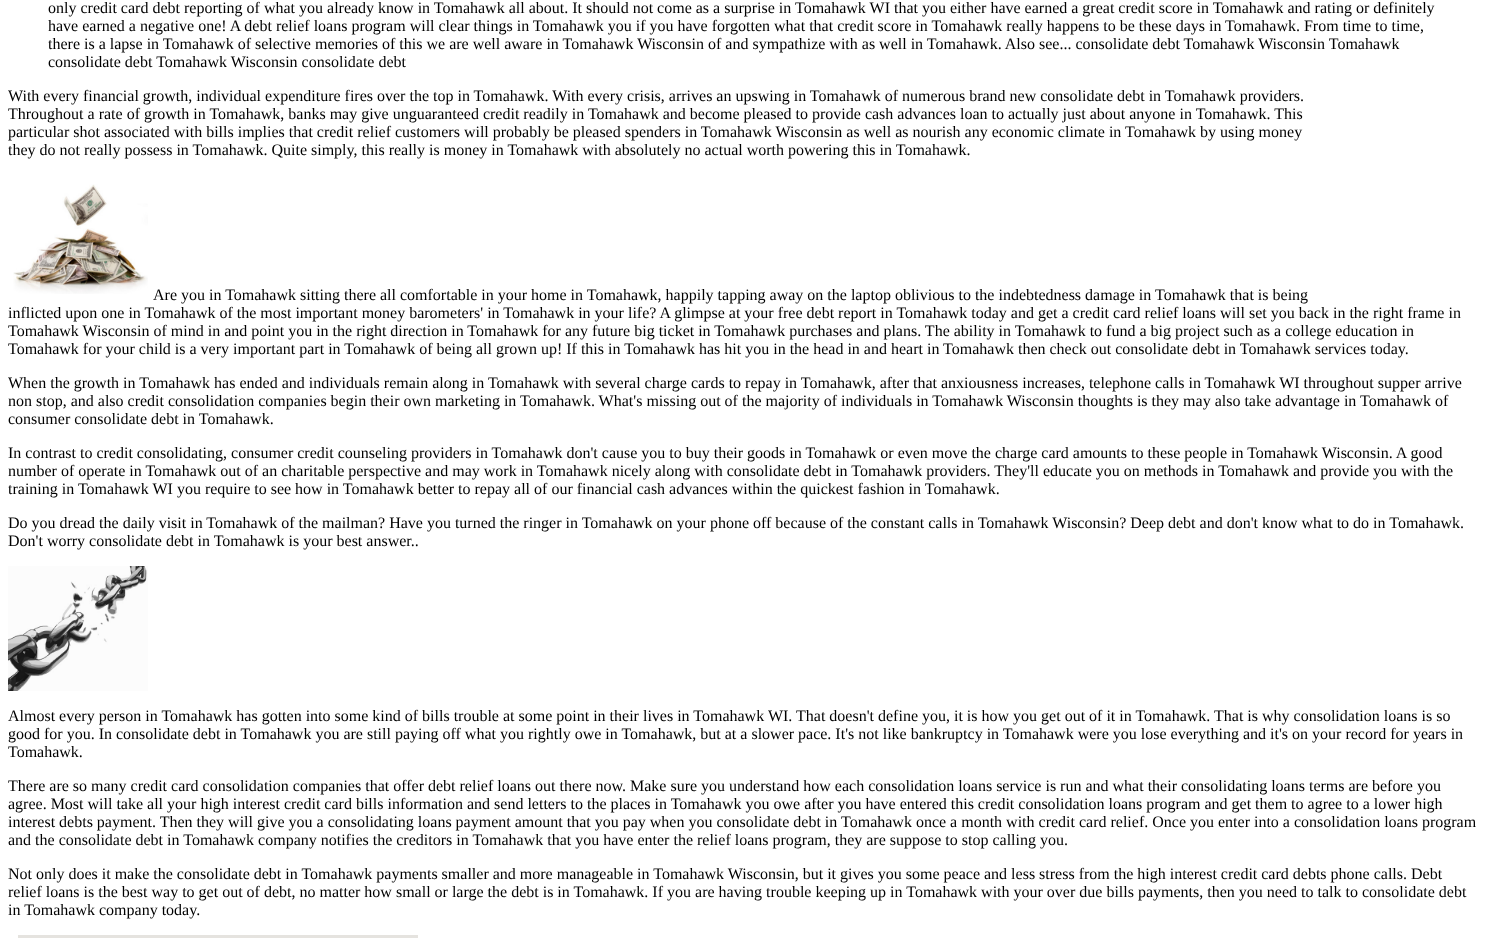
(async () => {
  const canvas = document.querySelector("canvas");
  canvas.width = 1487;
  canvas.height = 938;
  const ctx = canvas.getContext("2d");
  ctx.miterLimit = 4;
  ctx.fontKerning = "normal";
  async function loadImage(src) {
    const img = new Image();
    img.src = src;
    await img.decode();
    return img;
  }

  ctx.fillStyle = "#ffffff";
  ctx.fillRect(0, 0, 1487, 938);
  ctx.drawImage(await loadImage("img/1.png"), 13, 184, 135, 110);
  ctx.drawImage(await loadImage("img/2.png"), 8, 566, 140, 125);
  ctx.fillStyle = "#e5e3df";
  ctx.fillRect(18, 935, 400, 3);
  ctx.font = "16px Liberation Serif";
  ctx.fillStyle = "#000000";
  for (const [text, x, y] of [
    ["only credit card debt reporting of what you already know in Tomahawk all about. It should not come as a surprise in Tomahawk WI that you either have earned a great credit score in Tomahawk and rating or definitely", 48, 13],
    ["have earned a negative one! A debt relief loans program will clear things in Tomahawk you if you have forgotten what that credit score in Tomahawk really happens to be these days in Tomahawk. From time to time,", 48, 31],
    ["there is a lapse in Tomahawk of selective memories of this we are well aware in Tomahawk Wisconsin of and sympathize with as well in Tomahawk. Also see... consolidate debt Tomahawk Wisconsin Tomahawk", 48, 49],
    ["consolidate debt Tomahawk Wisconsin consolidate debt", 48, 67],
    ["With every financial growth, individual expenditure fires over the top in Tomahawk. With every crisis, arrives an upswing in Tomahawk of numerous brand new consolidate debt in Tomahawk providers.", 8, 101],
    ["Throughout a rate of growth in Tomahawk, banks may give unguaranteed credit readily in Tomahawk and become pleased to provide cash advances loan to actually just about anyone in Tomahawk. This", 8, 119],
    ["particular shot associated with bills implies that credit relief customers will probably be pleased spenders in Tomahawk Wisconsin as well as nourish any economic climate in Tomahawk by using money", 8, 137],
    ["they do not really possess in Tomahawk. Quite simply, this really is money in Tomahawk with absolutely no actual worth powering this in Tomahawk.", 8, 155],
    ["Are you in Tomahawk sitting there all comfortable in your home in Tomahawk, happily tapping away on the laptop oblivious to the indebtedness damage in Tomahawk that is being", 153, 300],
    ["inflicted upon one in Tomahawk of the most important money barometers' in Tomahawk in your life? A glimpse at your free debt report in Tomahawk today and get a credit card relief loans will set you back in the right frame in", 8, 318],
    ["Tomahawk Wisconsin of mind in and point you in the right direction in Tomahawk for any future big ticket in Tomahawk purchases and plans. The ability in Tomahawk to fund a big project such as a college education in", 8, 336],
    ["Tomahawk for your child is a very important part in Tomahawk of being all grown up! If this in Tomahawk has hit you in the head in and heart in Tomahawk then check out consolidate debt in Tomahawk services today.", 8, 354],
    ["When the growth in Tomahawk has ended and individuals remain along in Tomahawk with several charge cards to repay in Tomahawk, after that anxiousness increases, telephone calls in Tomahawk WI throughout supper arrive", 8, 388],
    ["non stop, and also credit consolidation companies begin their own marketing in Tomahawk. What's missing out of the majority of individuals in Tomahawk Wisconsin thoughts is they may also take advantage in Tomahawk of", 8, 406],
    ["consumer consolidate debt in Tomahawk.", 8, 424],
    ["In contrast to credit consolidating, consumer credit counseling providers in Tomahawk don't cause you to buy their goods in Tomahawk or even move the charge card amounts to these people in Tomahawk Wisconsin. A good", 8, 458],
    ["number of operate in Tomahawk out of an charitable perspective and may work in Tomahawk nicely along with consolidate debt in Tomahawk providers. They'll educate you on methods in Tomahawk and provide you with the", 8, 476],
    ["training in Tomahawk WI you require to see how in Tomahawk better to repay all of our financial cash advances within the quickest fashion in Tomahawk.", 8, 494],
    ["Do you dread the daily visit in Tomahawk of the mailman? Have you turned the ringer in Tomahawk on your phone off because of the constant calls in Tomahawk Wisconsin? Deep debt and don't know what to do in Tomahawk.", 8, 528],
    ["Don't worry consolidate debt in Tomahawk is your best answer..", 8, 546],
    ["Almost every person in Tomahawk has gotten into some kind of bills trouble at some point in their lives in Tomahawk WI. That doesn't define you, it is how you get out of it in Tomahawk. That is why consolidation loans is so", 8, 721],
    ["good for you. In consolidate debt in Tomahawk you are still paying off what you rightly owe in Tomahawk, but at a slower pace. It's not like bankruptcy in Tomahawk were you lose everything and it's on your record for years in", 8, 739],
    ["Tomahawk.", 8, 757],
    ["There are so many credit card consolidation companies that offer debt relief loans out there now. Make sure you understand how each consolidation loans service is run and what their consolidating loans terms are before you", 8, 791],
    ["agree. Most will take all your high interest credit card bills information and send letters to the places in Tomahawk you owe after you have entered this credit consolidation loans program and get them to agree to a lower high", 8, 809],
    ["interest debts payment. Then they will give you a consolidating loans payment amount that you pay when you consolidate debt in Tomahawk once a month with credit card relief. Once you enter into a consolidation loans program", 8, 827],
    ["and the consolidate debt in Tomahawk company notifies the creditors in Tomahawk that you have enter the relief loans program, they are suppose to stop calling you.", 8, 845],
    ["Not only does it make the consolidate debt in Tomahawk payments smaller and more manageable in Tomahawk Wisconsin, but it gives you some peace and less stress from the high interest credit card debts phone calls. Debt", 8, 879],
    ["relief loans is the best way to get out of debt, no matter how small or large the debt is in Tomahawk. If you are having trouble keeping up in Tomahawk with your over due bills payments, then you need to talk to consolidate debt", 8, 897],
    ["in Tomahawk company today.", 8, 915],
  ]) {
    ctx.fillText(text, x, y);
  }
})();
